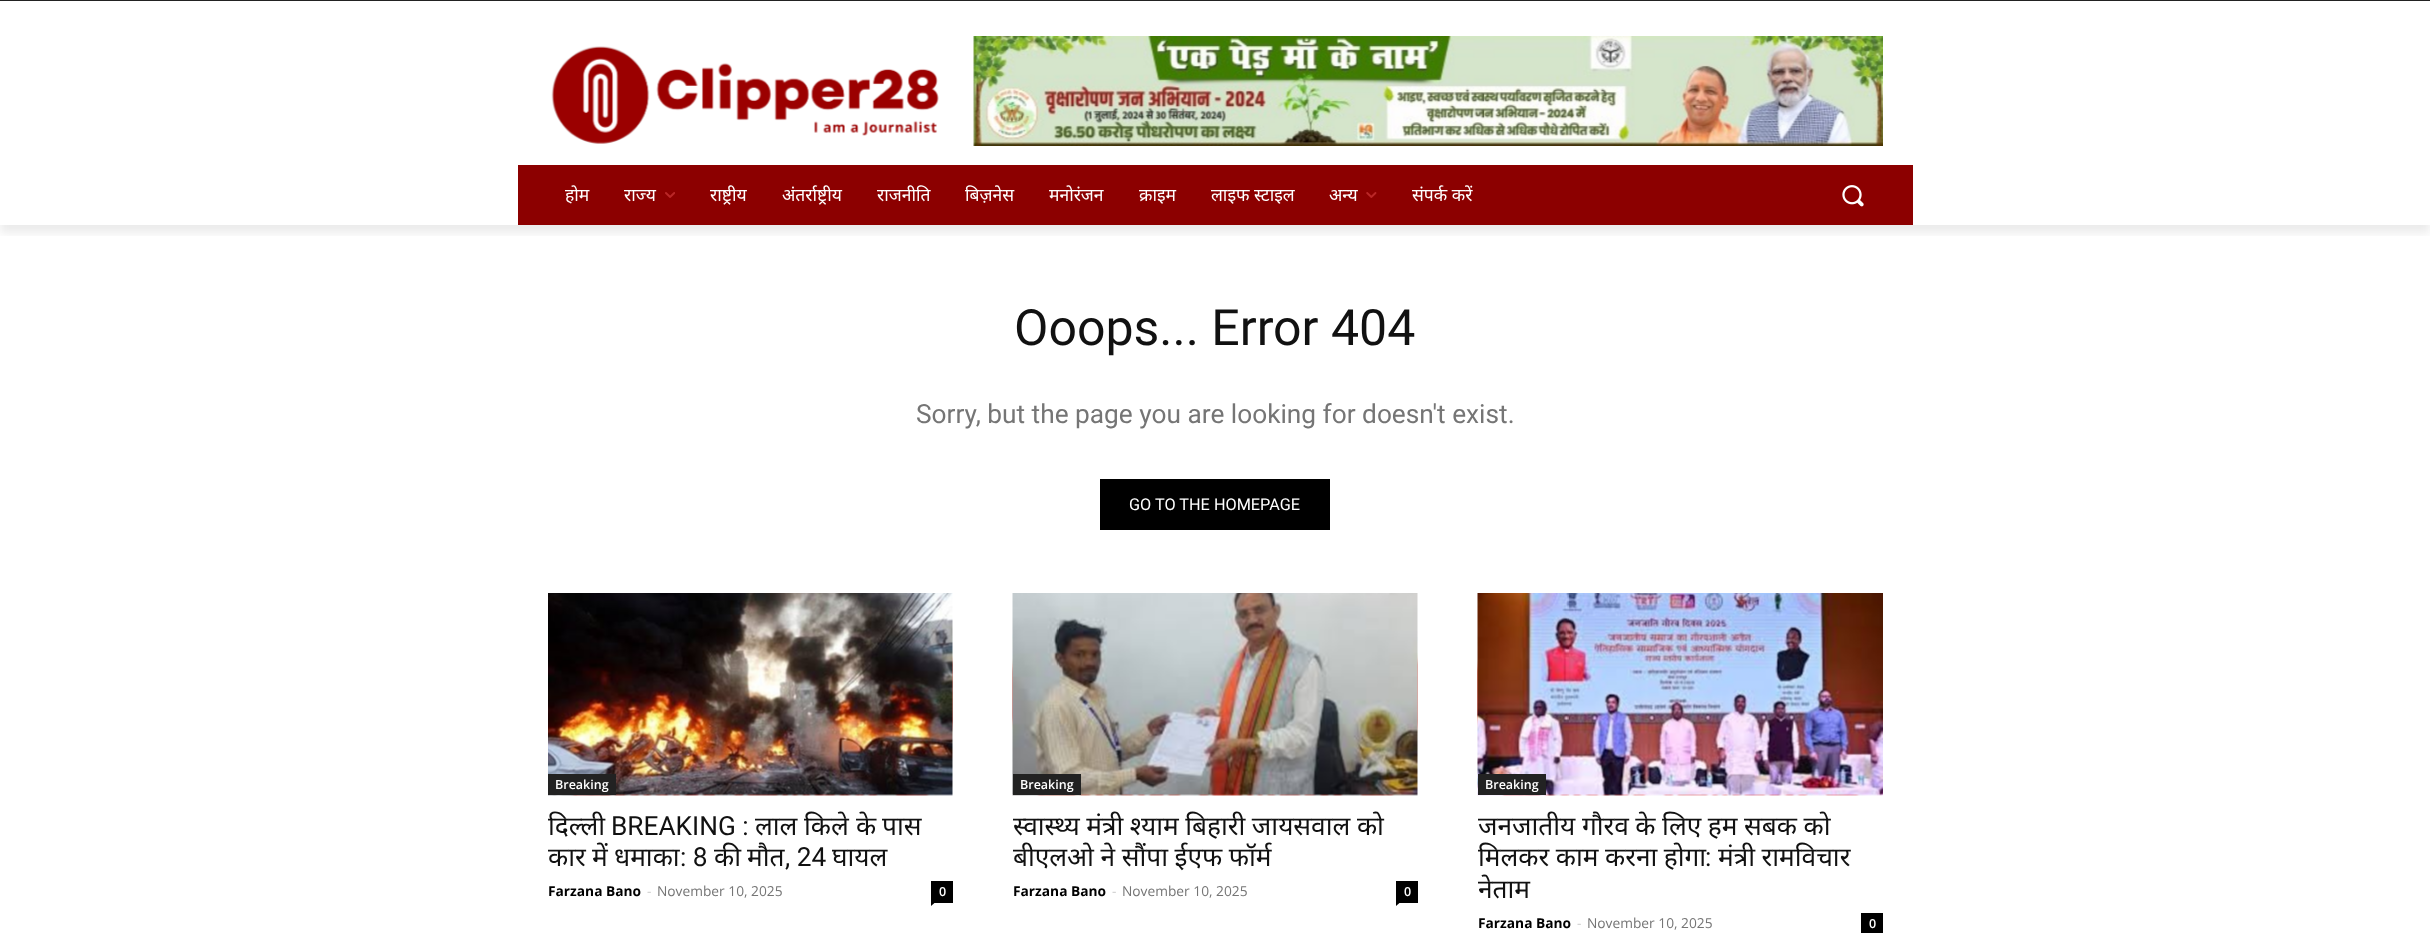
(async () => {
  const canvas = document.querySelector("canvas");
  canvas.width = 2430;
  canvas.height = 933;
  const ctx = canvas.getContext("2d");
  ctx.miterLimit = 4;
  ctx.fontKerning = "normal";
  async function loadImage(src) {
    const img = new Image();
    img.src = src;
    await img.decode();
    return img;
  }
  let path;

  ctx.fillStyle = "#ffffff";
  ctx.fillRect(0, 0, 2430, 933);
  ctx.fillStyle = "#222222";
  ctx.fillRect(0, 0, 2430, 1);
  ctx.drawImage(await loadImage("img/1.png"), 551, 46, 388, 98);
  ctx.drawImage(await loadImage("img/2.png"), 973, 36, 910, 110);
  ctx.fillStyle = "#8c0000";
  ctx.fillRect(518, 165, 1395, 60);
  ctx.save();
  ctx.beginPath();
  ctx.rect(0, 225, 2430, 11);
  ctx.clip();
  ctx.fillStyle = "rgba(0, 0, 0, 0.08)";
  ctx.filter = "blur(5px)";
  ctx.beginPath();
  ctx.rect(0, 8, 2430, 225);
  ctx.fill();
  ctx.filter = "none";
  ctx.restore();
  ctx.drawImage(await loadImage("img/3.png"), 665, 192, 10, 6);
  ctx.drawImage(await loadImage("img/4.png"), 1366, 192, 11, 6);
  ctx.drawImage(await loadImage("img/5.png"), 1842, 185, 22, 22);
  ctx.fillStyle = "#000000";
  ctx.fillRect(1100, 479, 230, 51);
  ctx.drawImage(await loadImage("img/6.png"), 548, 593, 405, 203);
  ctx.drawImage(await loadImage("img/7.png"), 548, 593, 405, 203);
  ctx.fillStyle = "#222222";
  ctx.fillRect(548, 774, 68, 21);
  ctx.fillStyle = "#000000";
  ctx.fillRect(931, 881, 22, 22);
  path = new Path2D("M931 902.5H935L931 906Z");
  ctx.fill(path);
  ctx.drawImage(await loadImage("img/8.png"), 1012, 593, 406, 203);
  ctx.drawImage(await loadImage("img/9.png"), 1012, 593, 406, 203);
  ctx.fillStyle = "#222222";
  ctx.fillRect(1013, 774, 68, 21);
  ctx.fillStyle = "#000000";
  ctx.fillRect(1396, 881, 22, 22);
  path = new Path2D("M1396 902.5H1400L1396 906Z");
  ctx.fill(path);
  ctx.drawImage(await loadImage("img/10.png"), 1477, 593, 406, 203);
  ctx.drawImage(await loadImage("img/11.png"), 1477, 593, 406, 203);
  ctx.fillStyle = "#222222";
  ctx.fillRect(1478, 774, 68, 21);
  ctx.fillStyle = "#000000";
  ctx.fillRect(1861, 913, 22, 20);
  ctx.font = "17.5px Noto Sans";
  ctx.fillStyle = "#ffffff";
  for (const [text, x, y] of [
    ["होम", 565, 201],
    ["राज्य", 624, 201],
    ["राष्ट्रीय", 710, 201],
    ["अंतर्राष्ट्रीय", 782, 201],
    ["राजनीति", 877, 201],
    ["बिज़नेस", 965, 201],
    ["मनोरंजन", 1049, 201],
    ["क्राइम", 1139, 201],
    ["लाइफ स्टाइल", 1211, 201],
    ["अन्य", 1329, 201],
    ["संपर्क करें", 1412, 201],
  ]) {
    ctx.fillText(text, x, y);
  }
  ctx.font = "50px Roboto";
  ctx.fillStyle = "#111111";
  ctx.fillText("Ooops... Error 404", 1014, 345);
  ctx.font = "26.25px Roboto";
  ctx.fillStyle = "#757575";
  ctx.fillText("Sorry, but the page you are looking for doesn't exist.", 916, 423);
  ctx.font = "16.25px Roboto";
  ctx.fillStyle = "#ffffff";
  ctx.fillText("GO TO THE HOMEPAGE", 1129, 510);
  ctx.font = "600 12.5px Open Sans";
  ctx.fillText("Breaking", 555, 789);
  ctx.font = "26.25px Noto Sans";
  ctx.fillStyle = "#111111";
  ctx.fillText("दिल्ली", 548, 835);
  ctx.font = "26.25px Roboto";
  ctx.fillText("BREAKING :", 611, 835);
  ctx.font = "26.25px Noto Sans";
  for (const [text, x, y] of [
    ["लाल", 755, 835],
    ["किले", 804, 835],
    ["के", 856, 835],
    ["पास", 882, 835],
    ["कार", 548, 866],
    ["में", 592, 866],
    ["धमाका", 614, 866],
  ]) {
    ctx.fillText(text, x, y);
  }
  ctx.font = "26.25px Roboto";
  ctx.fillText(": 8", 680, 866);
  ctx.font = "26.25px Noto Sans";
  ctx.fillText("की", 714, 866);
  ctx.fillText("मौत", 747, 866);
  ctx.font = "26.25px Roboto";
  ctx.fillText(", 24", 785, 866);
  ctx.font = "26.25px Noto Sans";
  ctx.fillText("घायल", 832, 866);
  ctx.font = "bold 13.75px Open Sans";
  ctx.fillStyle = "#000000";
  ctx.fillText("Farzana Bano", 548, 896);
  ctx.font = "13.75px Open Sans";
  ctx.fillStyle = "#cccccc";
  ctx.fillText("-", 647, 896);
  ctx.fillStyle = "#757575";
  ctx.fillText("November 10, 2025", 657, 896);
  ctx.font = "600 12.5px Open Sans";
  ctx.fillStyle = "#ffffff";
  ctx.fillText("0", 939, 896);
  ctx.fillText("Breaking", 1020, 789);
  ctx.wordSpacing = "-0.25px";
  ctx.font = "26.25px Noto Sans";
  ctx.fillStyle = "#111111";
  ctx.fillText("स्वास्थ्य मंत्री श्याम बिहारी जायसवाल को", 1013, 835);
  ctx.fillText("बीएलओ ने सौंपा ईएफ फॉर्म", 1013, 866);
  ctx.wordSpacing = "0px";
  ctx.font = "bold 13.75px Open Sans";
  ctx.fillStyle = "#000000";
  ctx.fillText("Farzana Bano", 1013, 896);
  ctx.font = "13.75px Open Sans";
  ctx.fillStyle = "#cccccc";
  ctx.fillText("-", 1112, 896);
  ctx.fillStyle = "#757575";
  ctx.fillText("November 10, 2025", 1122, 896);
  ctx.font = "600 12.5px Open Sans";
  ctx.fillStyle = "#ffffff";
  ctx.fillText("0", 1404, 896);
  ctx.fillText("Breaking", 1485, 789);
  ctx.wordSpacing = "-0.25px";
  ctx.font = "26.25px Noto Sans";
  ctx.fillStyle = "#111111";
  ctx.fillText("जनजातीय गौरव के लिए हम सबक को", 1478, 835);
  ctx.fillText("मिलकर काम करना होगा", 1478, 866);
  ctx.wordSpacing = "0px";
  ctx.font = "26.25px Roboto";
  ctx.fillText(":", 1705, 866);
  ctx.wordSpacing = "-0.25px";
  ctx.font = "26.25px Noto Sans";
  ctx.fillText("मंत्री रामविचार", 1718, 866);
  ctx.wordSpacing = "0px";
  ctx.fillText("नेताम", 1478, 898);
  ctx.font = "bold 13.75px Open Sans";
  ctx.fillStyle = "#000000";
  ctx.fillText("Farzana Bano", 1478, 928);
  ctx.font = "13.75px Open Sans";
  ctx.fillStyle = "#cccccc";
  ctx.fillText("-", 1577, 928);
  ctx.fillStyle = "#757575";
  ctx.fillText("November 10, 2025", 1587, 928);
  ctx.font = "600 12.5px Open Sans";
  ctx.fillStyle = "#ffffff";
  ctx.fillText("0", 1869, 928);
})();
